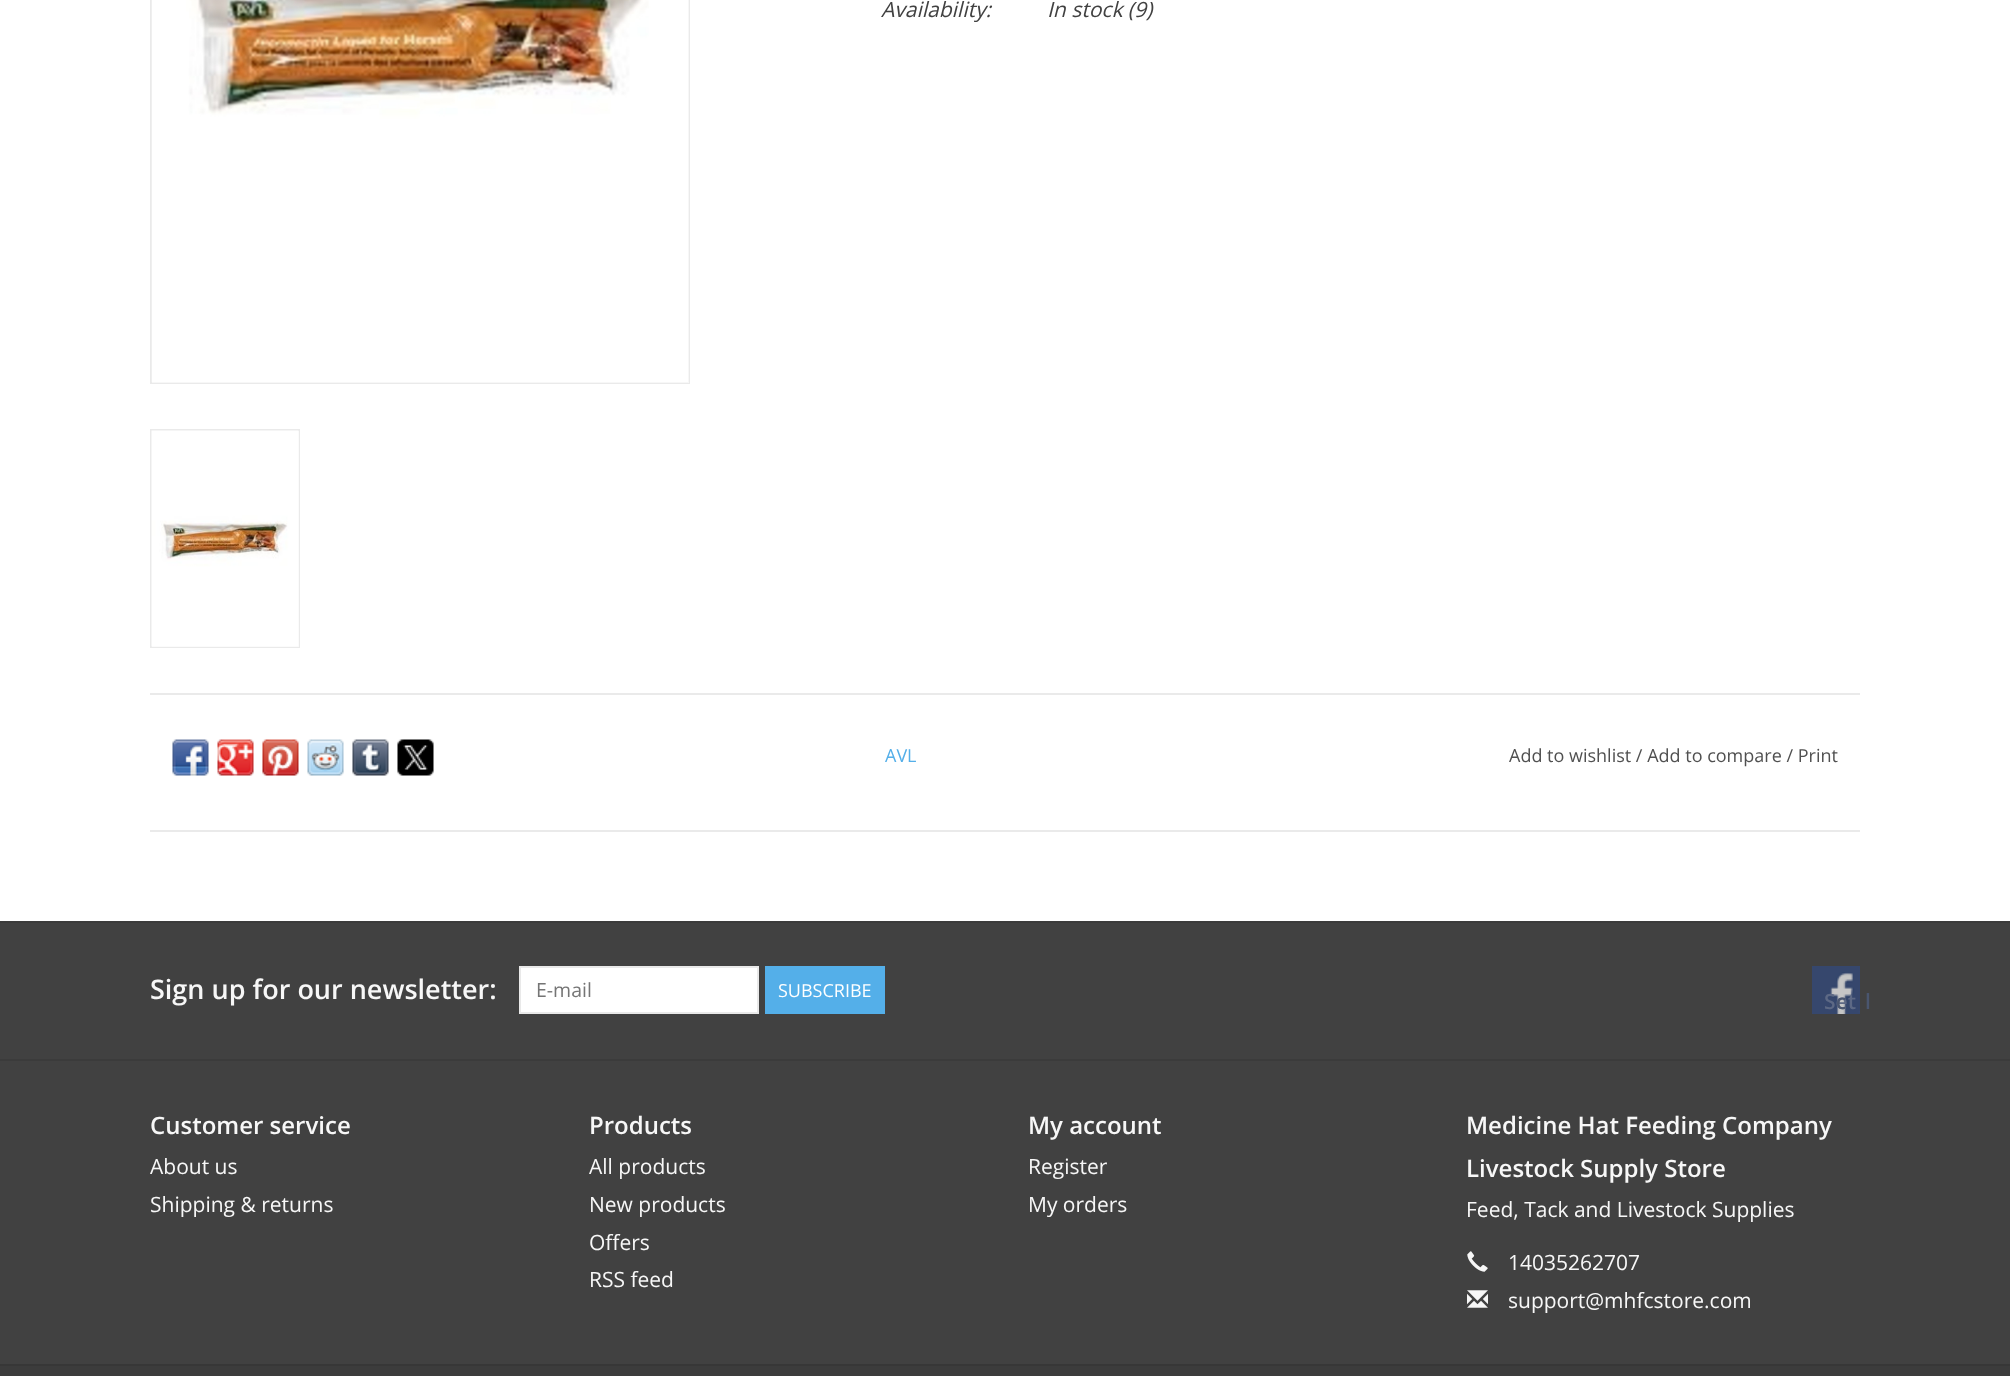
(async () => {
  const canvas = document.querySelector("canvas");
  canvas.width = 2010;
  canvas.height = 1376;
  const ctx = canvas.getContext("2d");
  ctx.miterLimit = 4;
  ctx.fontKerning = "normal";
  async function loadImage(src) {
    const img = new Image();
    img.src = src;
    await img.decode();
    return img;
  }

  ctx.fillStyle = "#ffffff";
  ctx.fillRect(0, 0, 2010, 1376);
  ctx.strokeStyle = "#eaeaea";
  ctx.lineWidth = 2;
  ctx.strokeRect(151, -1, 538, 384);
  ctx.fillStyle = "#f7f7f7";
  ctx.fillRect(152, 0, 537, 383);
  ctx.drawImage(await loadImage("img/1.png"), 151, 0, 537, 382);
  ctx.strokeRect(151, 430, 148, 217);
  ctx.fillRect(152, 431, 147, 216);
  ctx.drawImage(await loadImage("img/2.png"), 151, 430, 148, 217);
  ctx.fillStyle = "#eaeaea";
  ctx.fillRect(150, 693, 1710, 2);
  ctx.fillRect(150, 830, 1710, 2);
  ctx.drawImage(await loadImage("img/3.png"), 172, 739, 37, 37);
  ctx.drawImage(await loadImage("img/4.png"), 217, 739, 37, 37);
  ctx.drawImage(await loadImage("img/5.png"), 262, 739, 37, 37);
  ctx.drawImage(await loadImage("img/6.png"), 307, 739, 37, 37);
  ctx.drawImage(await loadImage("img/7.png"), 352, 739, 37, 37);
  ctx.drawImage(await loadImage("img/8.png"), 397, 739, 37, 37);
  ctx.fillStyle = "#414141";
  ctx.fillRect(0, 923, 2010, 441);
  ctx.fillStyle = "#3b3b3b";
  ctx.fillRect(0, 921, 2010, 2);
  ctx.fillStyle = "#ffffff";
  ctx.beginPath();
  ctx.rect(520, 967, 238, 46);
  ctx.fill();
  ctx.strokeStyle = "#e9e9e9";
  ctx.stroke();
  ctx.fillStyle = "#54afe9";
  ctx.fillRect(765, 966, 120, 48);
  ctx.drawImage(await loadImage("img/9.png"), 1812, 966, 48, 48);
  ctx.fillStyle = "#3b3b3b";
  ctx.fillRect(0, 1059, 2010, 2);
  ctx.drawImage(await loadImage("img/10.png"), 1467, 1251, 21, 21);
  ctx.drawImage(await loadImage("img/11.png"), 1467, 1290, 21, 18);
  ctx.fillStyle = "#373737";
  ctx.fillRect(0, 1364, 2010, 2);
  ctx.fillStyle = "#3c3c3c";
  ctx.fillRect(0, 1366, 2010, 10);
  ctx.font = "italic 21px Open Sans";
  ctx.fillStyle = "#414141";
  ctx.fillText("Availability:", 881, 17);
  ctx.fillText("In stock (9)", 1047, 17);
  ctx.font = "18px Open Sans";
  ctx.fillStyle = "#54afe9";
  ctx.fillText("AVL", 885, 762);
  ctx.fillStyle = "#505050";
  ctx.fillText("Add to wishlist / Add to compare / Print", 1509, 762);
  ctx.font = "600 27px Open Sans";
  ctx.fillStyle = "#f7f7f7";
  ctx.fillText("Sign up for our newsletter:", 150, 999);
  ctx.font = "19.5px Open Sans";
  ctx.fillStyle = "#757575";
  ctx.fillText("E-mail", 536, 997);
  ctx.font = "18px Open Sans";
  ctx.fillStyle = "#ffffff";
  ctx.fillText("SUBSCRIBE", 778, 997);
  ctx.font = "600 21px Open Sans";
  ctx.fillStyle = "#5d6985";
  ctx.fillText("Set", 1824, 1009);
  ctx.fillStyle = "#4a566f";
  ctx.fillText("l", 1865, 1009);
  ctx.fillText("c", 1836, 1009);
  ctx.font = "600 24px Open Sans";
  ctx.fillStyle = "#f7f7f7";
  ctx.fillText("Customer service", 150, 1134);
  ctx.font = "21px Open Sans";
  ctx.fillText("About us", 150, 1174);
  ctx.fillText("Shipping & returns", 150, 1212);
  ctx.font = "600 24px Open Sans";
  ctx.fillText("Products", 589, 1134);
  ctx.font = "21px Open Sans";
  for (const [text, x, y] of [
    ["All products", 589, 1174],
    ["New products", 589, 1212],
    ["Offers", 589, 1250],
    ["RSS feed", 589, 1287],
  ]) {
    ctx.fillText(text, x, y);
  }
  ctx.font = "600 24px Open Sans";
  ctx.fillText("My account", 1028, 1134);
  ctx.font = "21px Open Sans";
  ctx.fillText("Register", 1028, 1174);
  ctx.fillText("My orders", 1028, 1212);
  ctx.font = "600 24px Open Sans";
  ctx.fillText("Medicine Hat Feeding Company", 1466, 1134);
  ctx.fillText("Livestock Supply Store", 1466, 1177);
  ctx.font = "21px Open Sans";
  for (const [text, x, y] of [
    ["Feed, Tack and Livestock Supplies", 1466, 1217],
    ["14035262707", 1508, 1270],
    ["support@mhfcstore.com", 1508, 1308],
  ]) {
    ctx.fillText(text, x, y);
  }
})();
